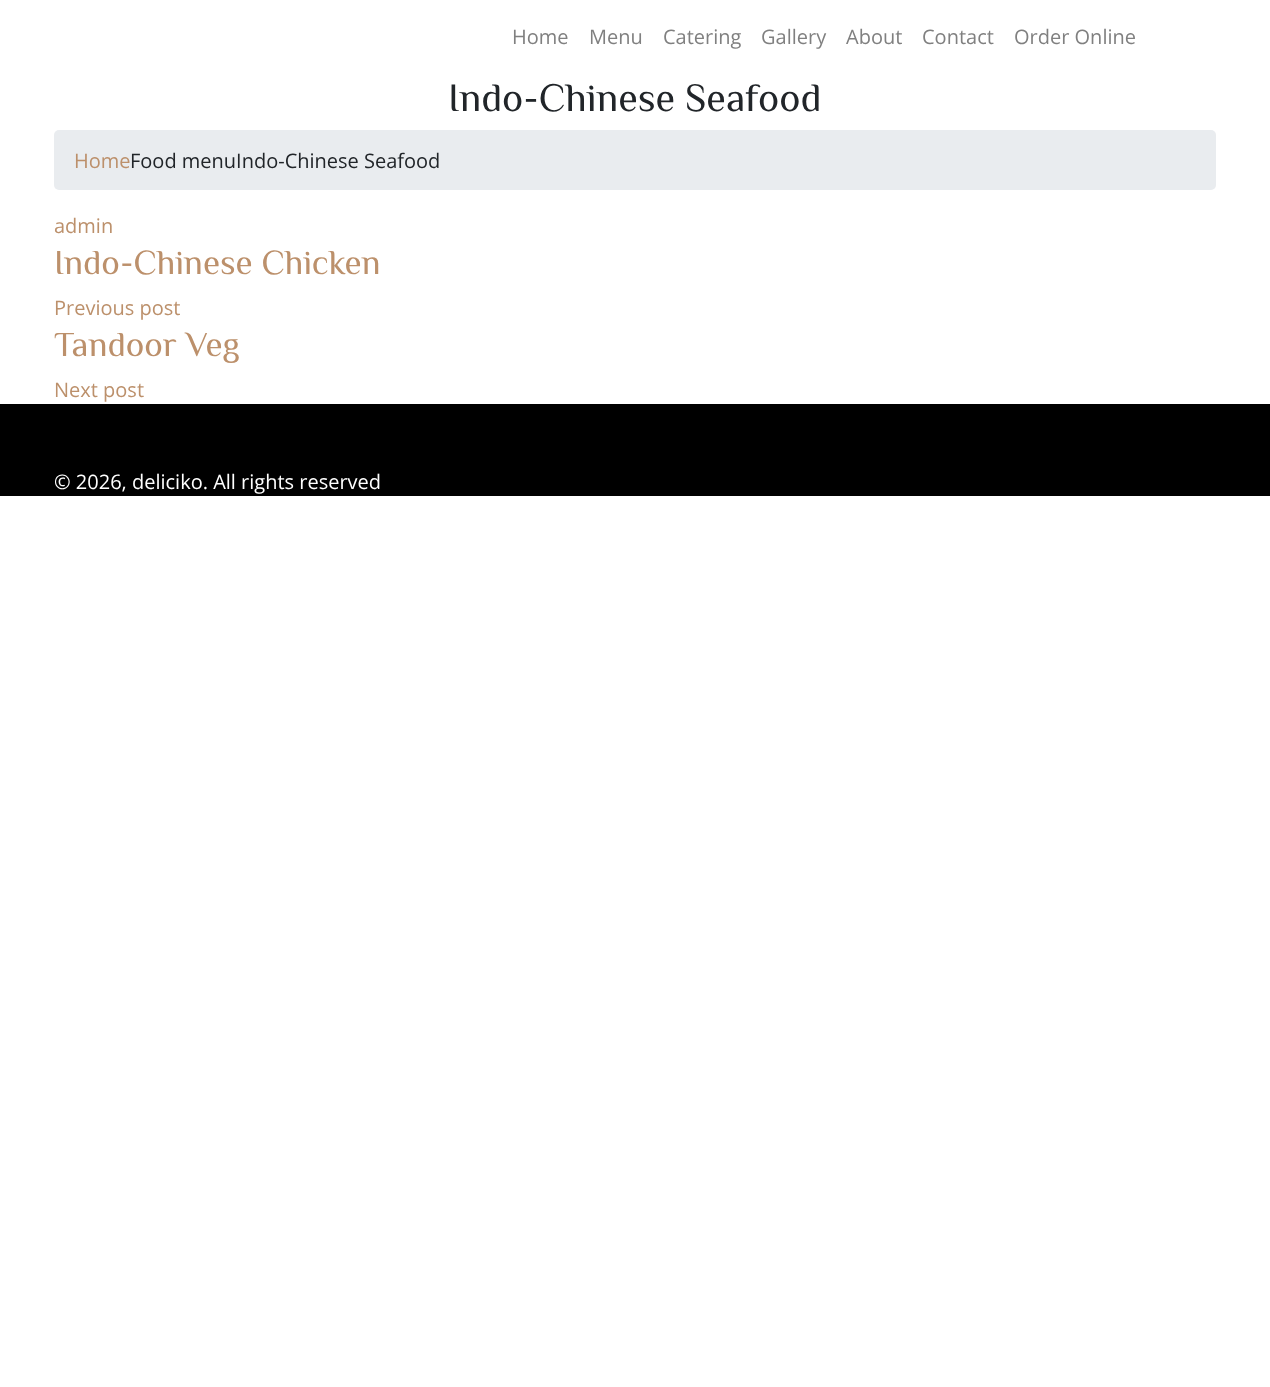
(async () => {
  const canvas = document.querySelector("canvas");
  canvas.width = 1270;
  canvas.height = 1387;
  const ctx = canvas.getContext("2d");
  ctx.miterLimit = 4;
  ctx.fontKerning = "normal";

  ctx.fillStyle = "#ffffff";
  ctx.fillRect(0, 0, 1270, 1387);
  ctx.fillStyle = "#e9ecef";
  ctx.beginPath();
  ctx.roundRect(54, 130, 1162, 60, 5);
  ctx.fill();
  ctx.fillStyle = "#000000";
  ctx.fillRect(0, 404, 1270, 92);
  ctx.font = "20px Open Sans";
  ctx.fillStyle = "#808080";
  for (const [text, x, y] of [
    ["Home", 512, 44],
    ["Menu", 589, 44],
    ["Catering", 663, 44],
    ["Gallery", 761, 44],
    ["About", 846, 44],
    ["Contact", 922, 44],
    ["Order Online", 1014, 44],
  ]) {
    ctx.fillText(text, x, y);
  }
  ctx.font = "40px ZCOOL XiaoWei";
  ctx.fillStyle = "#212529";
  ctx.fillText("Indo-Chinese Seafood", 448, 111);
  ctx.font = "20px Open Sans";
  ctx.fillStyle = "#bc906b";
  ctx.fillText("Home", 74, 168);
  ctx.fillStyle = "#212529";
  ctx.fillText("Food menuIndo-Chinese Seafood", 130, 168);
  ctx.fillStyle = "#bc906b";
  ctx.fillText("admin", 54, 233);
  ctx.font = "35px ZCOOL XiaoWei";
  ctx.fillText("Indo-Chinese Chicken", 54, 274);
  ctx.font = "20px Open Sans";
  ctx.fillText("Previous post", 54, 315);
  ctx.font = "35px ZCOOL XiaoWei";
  ctx.fillText("Tandoor Veg", 54, 356);
  ctx.font = "20px Open Sans";
  ctx.fillText("Next post", 54, 397);
  ctx.fillStyle = "#ffffff";
  ctx.fillText("© 2026, deliciko. All rights reserved", 54, 489);
})();
